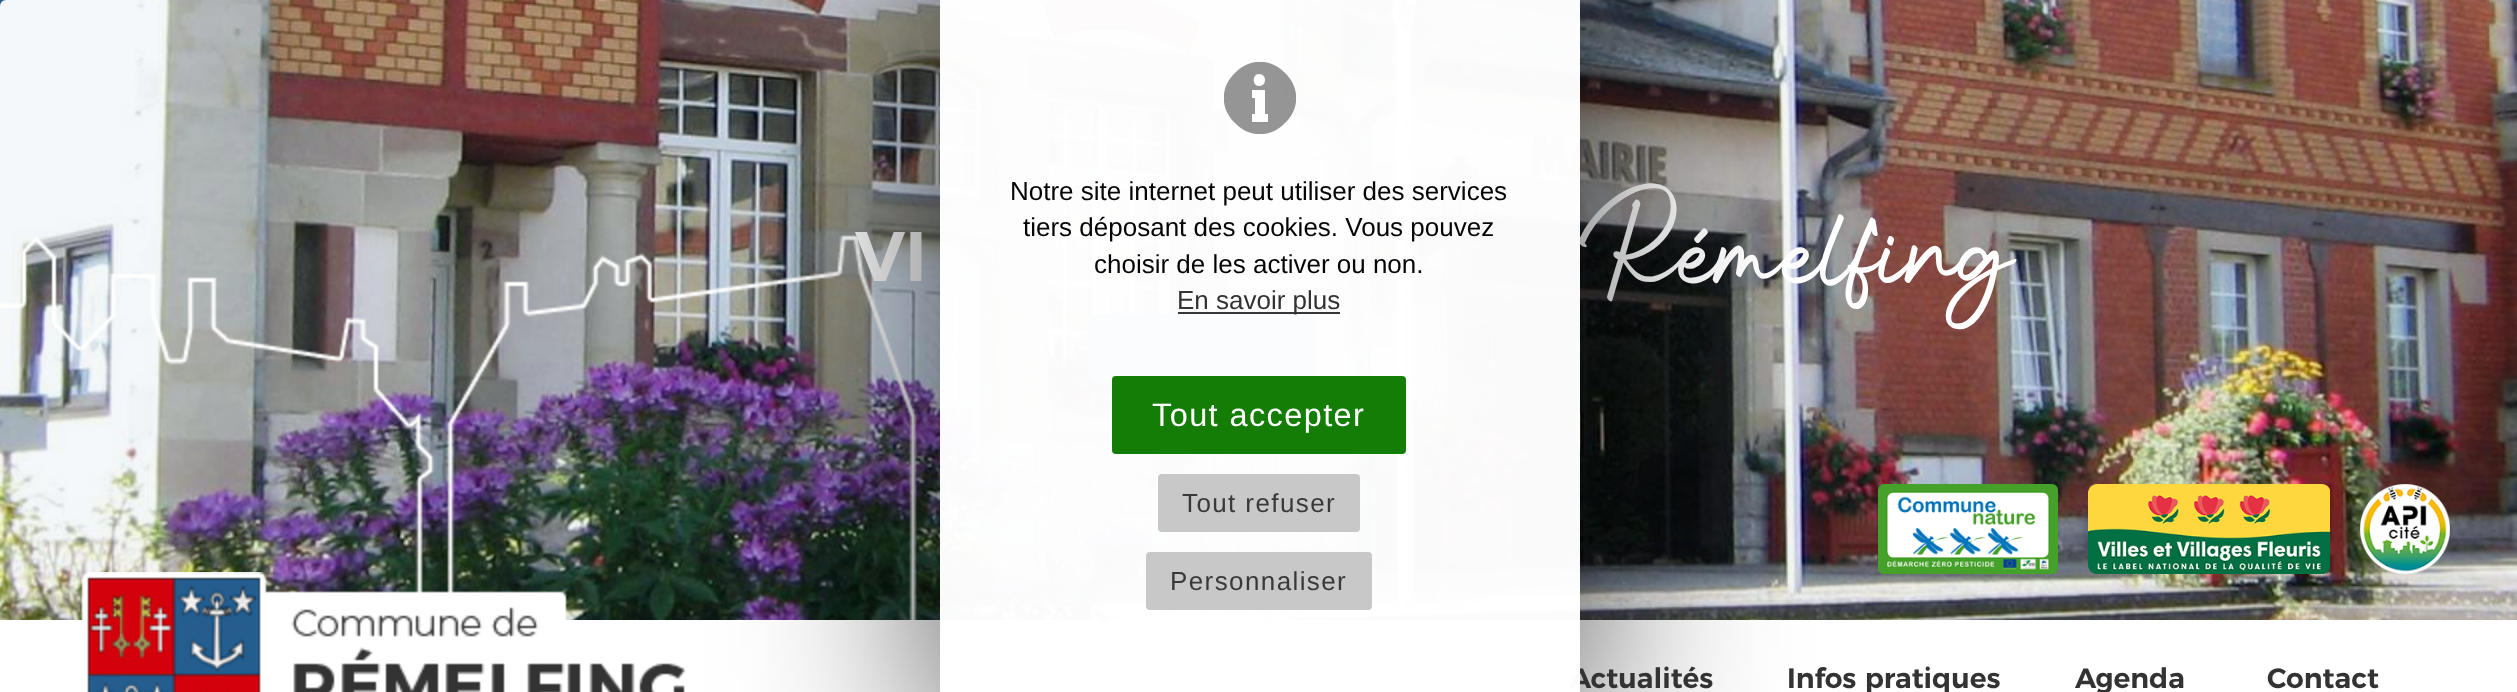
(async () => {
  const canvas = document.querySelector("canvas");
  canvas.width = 2517;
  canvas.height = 692;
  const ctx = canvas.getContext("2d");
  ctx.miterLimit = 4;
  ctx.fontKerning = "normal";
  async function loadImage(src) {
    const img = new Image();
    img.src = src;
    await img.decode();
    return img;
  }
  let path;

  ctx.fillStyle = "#245d8e";
  ctx.fillRect(0, 0, 2517, 692);
  ctx.drawImage(await loadImage("img/1.png"), 0, 0, 2517, 620);
  ctx.beginPath();
  ctx.roundRect(1088, 314, 228, 68, 6);
  ctx.fill();
  ctx.drawImage(await loadImage("img/4.png"), 1878, 484, 180, 90);
  ctx.drawImage(await loadImage("img/5.png"), 2088, 484, 242, 90);
  ctx.drawImage(await loadImage("img/6.png"), 2360, 484, 90, 90);
  ctx.font = "600 70px Montserrat";
  ctx.fillStyle = "#ffffff";
  ctx.fillText("VI", 855, 281);
  ctx.font = "70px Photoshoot";
  ctx.fillText("Rémelfing", 1579, 281);
  ctx.drawImage(await loadImage("img/2.png"), 0, 235, 917, 385);
  ctx.fillStyle = "rgba(0, 0, 0, 0.1)";
  ctx.filter = "blur(15px)";
  ctx.beginPath();
  ctx.rect(0, 616, 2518, 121);
  ctx.fill();
  ctx.filter = "none";
  ctx.fillStyle = "#ffffff";
  ctx.fillRect(0, 620, 2517, 72);
  ctx.drawImage(await loadImage("img/3.png"), 81, 572, 605, 120);
  ctx.fillStyle = "#dee7ee";
  ctx.fillRect(1116, 620, 208, 72);
  ctx.save();
  path = new Path2D("M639 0H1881V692H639ZM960-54H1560C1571-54 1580-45 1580-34V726C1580 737 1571 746 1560 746H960C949 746 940 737 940 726V-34C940-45 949-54 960-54Z");
  ctx.clip(path, "evenodd");
  ctx.fillStyle = "rgba(0, 0, 0, 0.69)";
  ctx.filter = "blur(100px)";
  ctx.beginPath();
  ctx.roundRect(940, -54, 640, 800, 20);
  ctx.fill();
  ctx.filter = "none";
  ctx.restore();
  ctx.font = "600 28px Montserrat";
  ctx.fillStyle = "#333333";
  ctx.fillText("Actualités", 1570, 688);
  ctx.fillStyle = "rgba(255, 255, 255, 0.98)";
  ctx.fillRect(940, 0, 640, 692);
  ctx.fillStyle = "rgba(199, 199, 199, 0.98)";
  ctx.beginPath();
  ctx.roundRect(1146, 552, 226, 58, 4);
  ctx.fill();
  ctx.letterSpacing = "1.4px";
  ctx.font = "26px Liberation Sans";
  ctx.fillStyle = "#393939";
  ctx.fillText("Personnaliser", 1170, 590);
  ctx.fillStyle = "rgba(199, 199, 199, 0.98)";
  ctx.beginPath();
  ctx.roundRect(1158, 474, 202, 58, 4);
  ctx.fill();
  ctx.fillStyle = "#393939";
  ctx.fillText("Tout refuser", 1182, 512);
  ctx.fillStyle = "rgba(14, 122, 0, 0.98)";
  ctx.beginPath();
  ctx.roundRect(1112, 376, 294, 78, 4);
  ctx.fill();
  ctx.font = "32.5px Liberation Sans";
  ctx.fillStyle = "#ffffff";
  ctx.fillText("Tout accepter", 1152, 426);
  ctx.save();
  ctx.beginPath();
  ctx.rect(1224, 62, 72, 72);
  ctx.clip();
  ctx.fillStyle = "rgba(102, 102, 102, 0.69)";
  path = new Path2D("M1285 73C1271 58 1249 58 1235 73C1220 87 1220 109 1235 123C1249 138 1271 138 1285 123C1300 109 1300 87 1285 73ZM1259 74C1267 74 1267 86 1259 86C1252 86 1252 74 1259 74ZM1268 122H1252V114H1255V98H1252V90H1265V114H1268Z");
  ctx.fill(path);
  ctx.restore();
  ctx.fillStyle = "rgba(51, 51, 51, 0.98)";
  ctx.fillRect(1178, 312, 162, 2);
  ctx.letterSpacing = "0px";
  ctx.font = "26px Liberation Sans";
  ctx.fillStyle = "#333333";
  ctx.fillText("En savoir plus", 1177, 309);
  ctx.fillStyle = "#050505";
  for (const [text, x, y] of [
    ["choisir de les activer ou non.", 1094, 273],
    ["tiers déposant des cookies. Vous pouvez", 1023, 236],
    ["Notre site internet peut utiliser des services", 1010, 200],
  ]) {
    ctx.fillText(text, x, y);
  }
  ctx.font = "600 28px Montserrat";
  ctx.fillStyle = "#333333";
  for (const [text, x, y] of [
    ["Infos pratiques", 1787, 688],
    ["Agenda", 2075, 688],
    ["Contact", 2267, 688],
  ]) {
    ctx.fillText(text, x, y);
  }
})();
